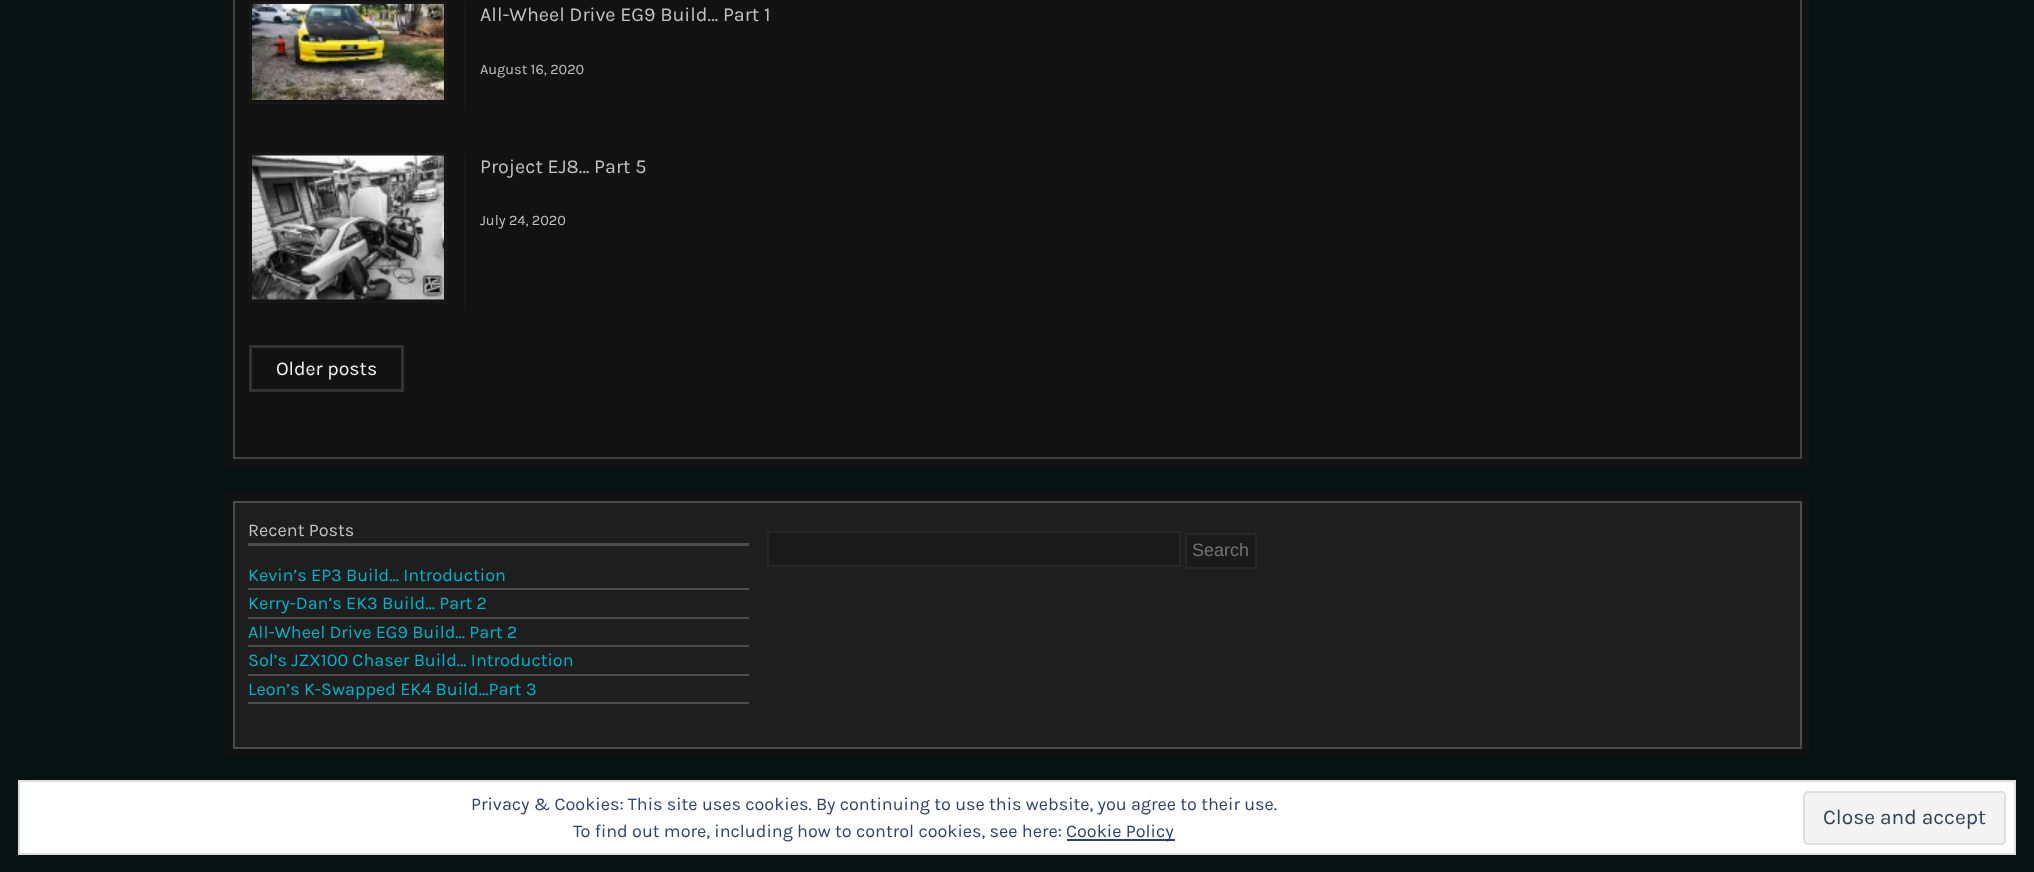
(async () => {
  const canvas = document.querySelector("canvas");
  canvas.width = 2034;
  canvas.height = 872;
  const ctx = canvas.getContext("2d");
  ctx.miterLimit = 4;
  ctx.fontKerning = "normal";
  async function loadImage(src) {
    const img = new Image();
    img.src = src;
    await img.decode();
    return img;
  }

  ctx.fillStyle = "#061310";
  ctx.fillRect(0, 0, 2034, 872);
  ctx.fillStyle = "#121212";
  ctx.fillRect(225, 0, 1584, 467);
  ctx.strokeStyle = "#414141";
  ctx.lineWidth = 2;
  ctx.strokeRect(234, -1, 1567, 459);
  ctx.fillStyle = "#181818";
  ctx.fillRect(464, 2, 2, 109);
  ctx.strokeStyle = "#181818";
  ctx.strokeRect(250, 3, 196, 100);
  ctx.drawImage(await loadImage("img/1.png"), 252, 4, 192, 96);
  ctx.fillRect(464, 153, 2, 158);
  ctx.strokeRect(250, 154, 196, 148);
  ctx.drawImage(await loadImage("img/2.png"), 252, 155, 192, 145);
  ctx.beginPath();
  ctx.rect(250.5, 346.5, 152, 44);
  ctx.strokeStyle = "#333333";
  ctx.lineWidth = 3;
  ctx.stroke();
  ctx.fillStyle = "#121212";
  ctx.fillRect(225, 494, 1584, 262);
  ctx.fillStyle = "#1e1e1e";
  ctx.beginPath();
  ctx.rect(234, 502, 1567, 246);
  ctx.fill();
  ctx.strokeStyle = "#4b4b4b";
  ctx.lineWidth = 2;
  ctx.stroke();
  for (const [x, y, w, h, color] of [
    [248, 543, 501, 3, "#4b4b4b"],
    [248, 588, 501, 2, "#4b4b4b"],
    [248, 617, 501, 2, "#4b4b4b"],
    [248, 645, 501, 2, "#4b4b4b"],
    [248, 674, 501, 2, "#4b4b4b"],
    [248, 702, 501, 2, "#4b4b4b"],
  ]) {
    ctx.fillStyle = color;
    ctx.fillRect(x, y, w, h);
  }
  ctx.fillStyle = "#1a1a1a";
  ctx.beginPath();
  ctx.rect(768, 532, 412, 34);
  ctx.fill();
  ctx.strokeStyle = "#272727";
  ctx.stroke();
  ctx.beginPath();
  ctx.rect(1186, 534, 70, 34);
  ctx.fill();
  ctx.stroke();
  ctx.fillStyle = "#ffffff";
  ctx.beginPath();
  ctx.rect(19, 781, 1996, 73);
  ctx.fill();
  ctx.strokeStyle = "#dedede";
  ctx.stroke();
  ctx.fillStyle = "#f3f3f3";
  ctx.beginPath();
  ctx.roundRect(1804, 792, 201, 52, 4);
  ctx.fill();
  ctx.stroke();
  ctx.fillStyle = "#2e4467";
  ctx.fillRect(1067, 839, 108, 2);
  ctx.font = "19.75px Karla";
  ctx.fillStyle = "#c2c2c2";
  ctx.fillText("All-Wheel Drive EG9 Build… Part 1", 480, 21);
  ctx.font = "14.5px Karla";
  ctx.fillText("August 16, 2020", 480, 74);
  ctx.font = "19.75px Karla";
  ctx.fillText("Project EJ8… Part 5", 480, 173);
  ctx.font = "14.5px Karla";
  ctx.fillText("July 24, 2020", 480, 225);
  ctx.font = "19.5px Karla";
  ctx.fillStyle = "#f2f2f2";
  ctx.fillText("Older posts", 276, 375);
  ctx.font = "18px Karla";
  ctx.fillStyle = "#c2c2c2";
  ctx.fillText("Recent Posts", 248, 536);
  ctx.fillStyle = "#00b4cc";
  for (const [text, x, y] of [
    ["Kevin’s EP3 Build… Introduction", 248, 581],
    ["Kerry-Dan’s EK3 Build… Part 2", 248, 609],
    ["All-Wheel Drive EG9 Build… Part 2", 248, 638],
    ["Sol’s JZX100 Chaser Build… Introduction", 248, 666],
    ["Leon’s K-Swapped EK4 Build…Part 3", 248, 695],
  ]) {
    ctx.fillText(text, x, y);
  }
  ctx.font = "18px Liberation Sans";
  ctx.fillStyle = "#727272";
  ctx.fillText("Search", 1192, 556);
  ctx.font = "18px Karla";
  ctx.fillStyle = "#2e4467";
  ctx.fillText("Privacy & Cookies: This site uses cookies. By continuing to use this website, you agree to their use.", 471, 810);
  ctx.font = "21px Karla";
  ctx.fillStyle = "#2e4453";
  ctx.fillText("Close and accept", 1823, 824);
  ctx.font = "18px Karla";
  ctx.fillStyle = "#2e4467";
  ctx.fillText("To find out more, including how to control cookies, see here:", 573, 837);
  ctx.fillText("Cookie Policy", 1066, 837);
})();
